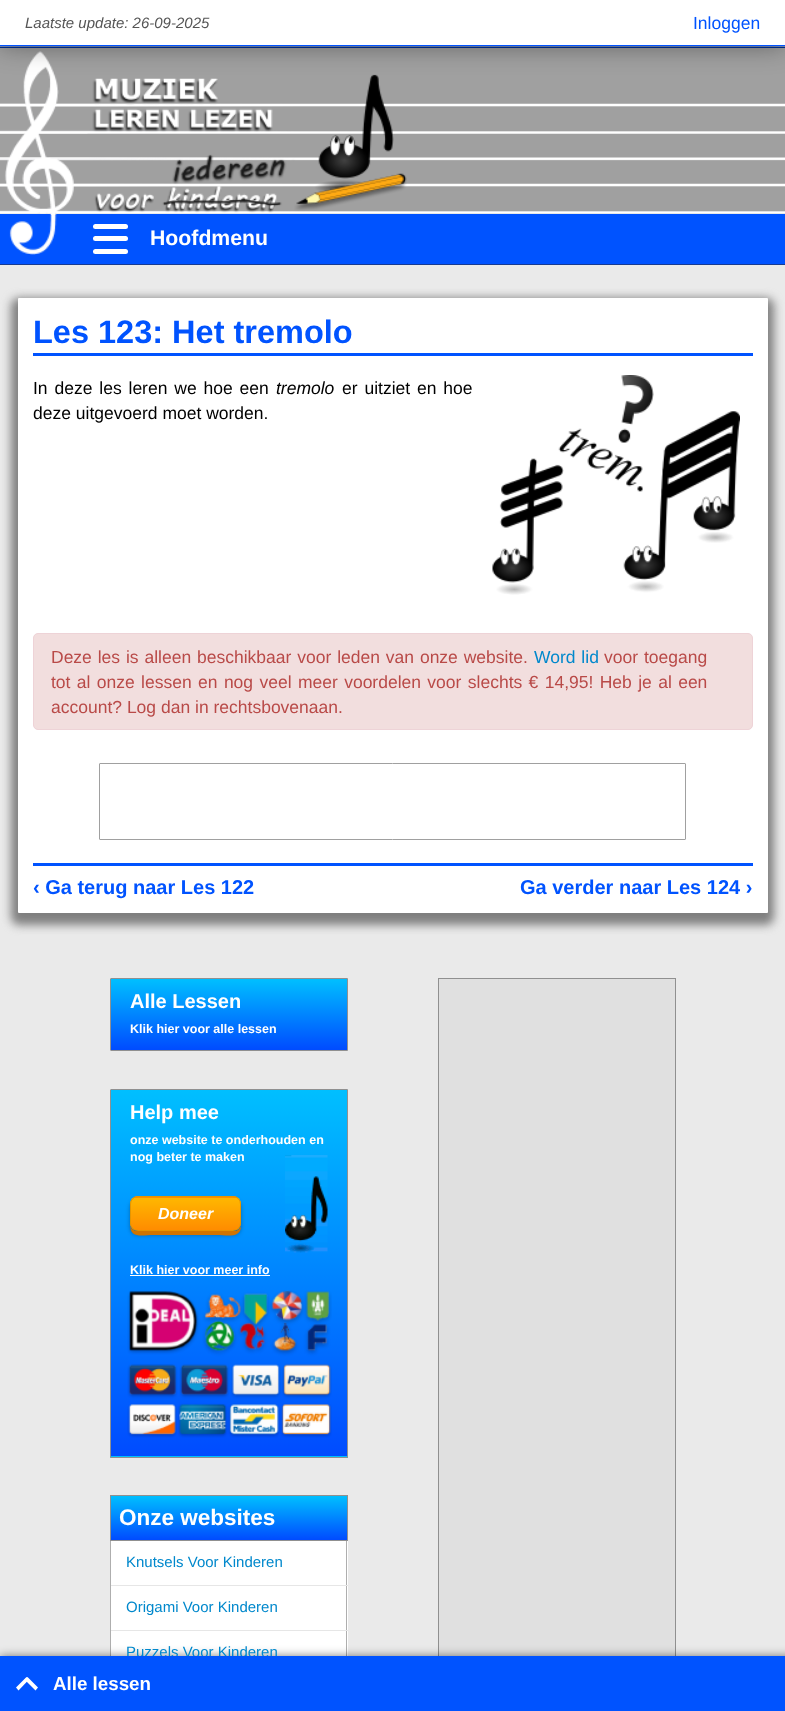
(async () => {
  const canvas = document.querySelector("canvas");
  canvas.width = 785;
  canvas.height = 1711;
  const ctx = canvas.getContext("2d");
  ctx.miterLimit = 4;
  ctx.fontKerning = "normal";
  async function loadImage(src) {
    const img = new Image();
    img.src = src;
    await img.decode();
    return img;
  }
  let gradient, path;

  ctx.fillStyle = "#eaeaea";
  ctx.fillRect(0, 0, 785, 1711);
  ctx.fillStyle = "#a0a0a0";
  ctx.fillRect(0, 46, 785, 168);
  ctx.drawImage(await loadImage("img/1.png"), 0, 46, 785, 168);
  ctx.fillStyle = "#0053ff";
  ctx.fillRect(0, 214, 785, 50);
  ctx.drawImage(await loadImage("img/3.png"), 9, 214, 48, 41);
  ctx.drawImage(await loadImage("img/2.png"), 0, 51, 407, 164);
  ctx.fillStyle = "rgba(0, 0, 0, 0.4)";
  ctx.filter = "blur(13px)";
  ctx.beginPath();
  ctx.rect(0, 0, 785, 46);
  ctx.fill();
  ctx.filter = "none";
  ctx.strokeStyle = "#002a7f";
  ctx.strokeRect(-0.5, -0.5, 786, 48);
  for (const [x, y, w, h, color] of [
    [0, 0, 785, 45, "#ffffff"],
    [0, 45, 785, 1, "#0053ff"],
    [0, 264, 785, 1, "#173b92"],
  ]) {
    ctx.fillStyle = color;
    ctx.fillRect(x, y, w, h);
  }
  ctx.fillStyle = "#ffffff";
  ctx.beginPath();
  ctx.roundRect(93, 224, 35, 5, 2.5);
  ctx.fill();
  ctx.beginPath();
  ctx.roundRect(93, 236, 35, 5, 2.5);
  ctx.fill();
  ctx.beginPath();
  ctx.roundRect(93, 249, 35, 5, 2.5);
  ctx.fill();
  ctx.fillStyle = "#7f7f7f";
  ctx.filter = "blur(5px)";
  ctx.beginPath();
  ctx.roundRect(11, 298, 763, 627, 8);
  ctx.fill();
  ctx.filter = "none";
  ctx.fillStyle = "#ffffff";
  ctx.beginPath();
  ctx.roundRect(18, 298, 750, 615, 1);
  ctx.fill();
  ctx.fillStyle = "#0053ff";
  ctx.fillRect(33, 353, 720, 3);
  ctx.drawImage(await loadImage("img/4.png"), 492, 375, 248, 220);
  ctx.fillStyle = "#f2dede";
  ctx.beginPath();
  ctx.roundRect(33.5, 633.5, 719, 96, 4.5);
  ctx.fill();
  ctx.strokeStyle = "#eed3d7";
  ctx.stroke();
  ctx.beginPath();
  ctx.roundRect(99.5, 763.5, 586, 76, 0.5);
  ctx.strokeStyle = "#a0a0a0";
  ctx.stroke();
  ctx.fillStyle = "#0053ff";
  ctx.fillRect(33, 863, 720, 3);
  gradient = ctx.createLinearGradient(229, 979, 229, 1050);
  gradient.addColorStop(0, "#00bfff");
  gradient.addColorStop(1, "#004bff");
  ctx.fillStyle = gradient;
  ctx.fillRect(111, 979, 236, 71);
  ctx.beginPath();
  ctx.roundRect(110.5, 978.5, 237, 72, [0.5, 0, 0, 0.5]);
  ctx.strokeStyle = "#909090";
  ctx.stroke();
  ctx.fillStyle = "#e0e0e0";
  ctx.fillRect(439, 979, 236, 677);
  ctx.strokeRect(438.5, 978.5, 237, 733);
  gradient = ctx.createLinearGradient(229, 1090, 229, 1456);
  gradient.addColorStop(0, "#00bfff");
  gradient.addColorStop(1, "#004bff");
  ctx.fillStyle = gradient;
  ctx.fillRect(111, 1090, 236, 366);
  gradient = ctx.createLinearGradient(229, 1456, 229, 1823);
  gradient.addColorStop(0, "#00bfff");
  gradient.addColorStop(1, "#004bff");
  ctx.fillStyle = gradient;
  ctx.beginPath();
  ctx.roundRect(110, 1456, 238, 2, [0, 0, 0, 1]);
  ctx.fill();
  ctx.beginPath();
  ctx.roundRect(110.5, 1089.5, 237, 368, [0.5, 0, 0, 0.5]);
  ctx.stroke();
  ctx.fillStyle = "rgba(0, 0, 0, 0.3)";
  ctx.filter = "blur(2px)";
  ctx.beginPath();
  ctx.roundRect(130, 1200, 111, 35, 8);
  ctx.fill();
  ctx.filter = "none";
  ctx.fillStyle = "#d07400";
  path = new Path2D("M130 1224C130 1239 141 1235 154 1235H217C226 1235 241 1239 241 1226C240 1229 237 1231 234 1231H138C133 1231 130 1228 130 1224Z");
  ctx.fill(path);
  ctx.save();
  ctx.beginPath();
  ctx.roundRect(130, 1196, 111, 35, 8);
  ctx.clip();
  gradient = ctx.createLinearGradient(186, 1165, 186, 1198);
  gradient.addColorStop(0, "#ffb700");
  gradient.addColorStop(1, "#ff8c00");
  ctx.fillStyle = gradient;
  ctx.fillRect(130, 1196, 111, 2);
  gradient = ctx.createLinearGradient(186, 1198, 186, 1230);
  gradient.addColorStop(0, "#ffb700");
  gradient.addColorStop(1, "#ff8c00");
  ctx.fillStyle = gradient;
  ctx.fillRect(130, 1198, 111, 32);
  ctx.restore();
  ctx.beginPath();
  ctx.roundRect(130.5, 1196.5, 110, 34, 7.5);
  ctx.strokeStyle = "#e59500";
  ctx.stroke();
  ctx.drawImage(await loadImage("img/5.png"), 285, 1155, 43, 98);
  ctx.fillStyle = "#ffffff";
  ctx.fillRect(130, 1275, 140, 1);
  ctx.drawImage(await loadImage("img/6.png"), 127, 1290, 205, 148);
  gradient = ctx.createLinearGradient(229, 1496, 229, 1540);
  gradient.addColorStop(0, "#00bfff");
  gradient.addColorStop(1, "#004bff");
  ctx.fillStyle = gradient;
  ctx.fillRect(111, 1496, 236, 44);
  ctx.strokeStyle = "#909090";
  ctx.strokeRect(110.5, 1495.5, 237, 45);
  for (const [x, y, w, h, color] of [
    [111, 1541, 237, 44, "#ffffff"],
    [346, 1541, 1, 45, "#aeaeae"],
    [110, 1585, 238, 1, "#e6e6e6"],
    [110, 1541, 1, 45, "#aeaeae"],
    [111, 1586, 237, 44, "#ffffff"],
    [346, 1586, 1, 45, "#aeaeae"],
    [110, 1630, 238, 1, "#e6e6e6"],
    [110, 1586, 1, 70, "#aeaeae"],
    [111, 1631, 237, 25, "#ffffff"],
    [346, 1631, 1, 25, "#aeaeae"],
  ]) {
    ctx.fillStyle = color;
    ctx.fillRect(x, y, w, h);
  }
  ctx.fillStyle = "rgba(0, 0, 0, 0.5)";
  ctx.filter = "blur(5px)";
  ctx.beginPath();
  ctx.rect(0, 1656, 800, 55);
  ctx.fill();
  ctx.filter = "none";
  ctx.font = "italic 15px Liberation Sans";
  ctx.fillStyle = "#555555";
  ctx.fillText("Laatste update: 26-09-2025", 25, 28);
  ctx.font = "17.5px Liberation Sans";
  ctx.fillStyle = "#0053ff";
  ctx.fillText("Inloggen", 693, 29);
  ctx.font = "bold 21.25px Liberation Sans";
  ctx.fillStyle = "#ffffff";
  ctx.fillText("Hoofdmenu", 150, 245);
  ctx.font = "bold 32.5px Liberation Sans";
  ctx.fillStyle = "#0053ff";
  ctx.fillText("Les 123: Het tremolo", 33, 343);
  ctx.wordSpacing = "2px";
  ctx.font = "17.5px Liberation Sans";
  ctx.fillStyle = "#000000";
  ctx.fillText("In deze les leren we hoe een", 33, 394);
  ctx.wordSpacing = "0px";
  ctx.font = "italic 17.5px Liberation Sans";
  ctx.fillText("tremolo", 276, 394);
  ctx.wordSpacing = "2px";
  ctx.font = "17.5px Liberation Sans";
  ctx.fillText("er uitziet en hoe", 342, 394);
  ctx.wordSpacing = "0px";
  ctx.fillText("deze uitgevoerd moet worden.", 33, 419);
  ctx.wordSpacing = "1px";
  ctx.fillStyle = "#b94a48";
  ctx.fillText("Deze les is alleen beschikbaar voor leden van onze website.", 51, 663);
  ctx.fillStyle = "#0088cc";
  ctx.fillText("Word lid", 534, 663);
  ctx.fillStyle = "#b94a48";
  ctx.fillText("voor toegang", 604, 663);
  ctx.wordSpacing = "1.5px";
  ctx.fillText("tot al onze lessen en nog veel meer voordelen voor slechts € 14,95! Heb je al een", 51, 688);
  ctx.wordSpacing = "0px";
  ctx.fillText("account? Log dan in rechtsbovenaan.", 51, 713);
  ctx.font = "bold 20px Liberation Sans";
  ctx.fillStyle = "#0053ff";
  ctx.fillText("‹ Ga terug naar Les 122", 33, 894);
  ctx.fillText("Ga verder naar Les 124 ›", 520, 894);
  ctx.fillStyle = "#ffffff";
  ctx.fillText("Alle Lessen", 130, 1008);
  ctx.font = "bold 12.5px Liberation Sans";
  ctx.fillText("Klik hier voor alle lessen", 130, 1033);
  ctx.font = "bold 20px Liberation Sans";
  ctx.fillText("Help mee", 130, 1119);
  ctx.font = "bold 12.5px Liberation Sans";
  ctx.fillText("onze website te onderhouden en", 130, 1144);
  ctx.fillText("nog beter te maken", 130, 1161);
  ctx.font = "italic bold 16px Liberation Sans";
  ctx.fillText("Doneer", 158, 1219);
  ctx.font = "bold 12.5px Liberation Sans";
  ctx.fillText("Klik hier voor meer info", 130, 1274);
  ctx.font = "bold 22.5px Liberation Sans";
  ctx.fillText("Onze websites", 119, 1525);
  ctx.font = "15px Liberation Sans";
  ctx.fillStyle = "#0088cc";
  for (const [text, x, y] of [
    ["Knutsels Voor Kinderen", 126, 1567],
    ["Origami Voor Kinderen", 126, 1612],
    ["Puzzels Voor Kinderen", 126, 1657],
  ]) {
    ctx.fillText(text, x, y);
  }
  ctx.fillStyle = "#0053ff";
  ctx.fillRect(0, 1656, 785, 55);
  ctx.fillStyle = "#ffffff";
  path = new Path2D("M18.5 1690.5L16 1687.5L26.5 1677L29 1679.5Z");
  ctx.fill(path);
  path = new Path2D("M35.5 1690.5L24.5 1679.5L27.5 1677L38 1687.5Z");
  ctx.fill(path);
  ctx.font = "bold 18.75px Liberation Sans";
  ctx.fillText("Alle lessen", 53, 1690);
})();
